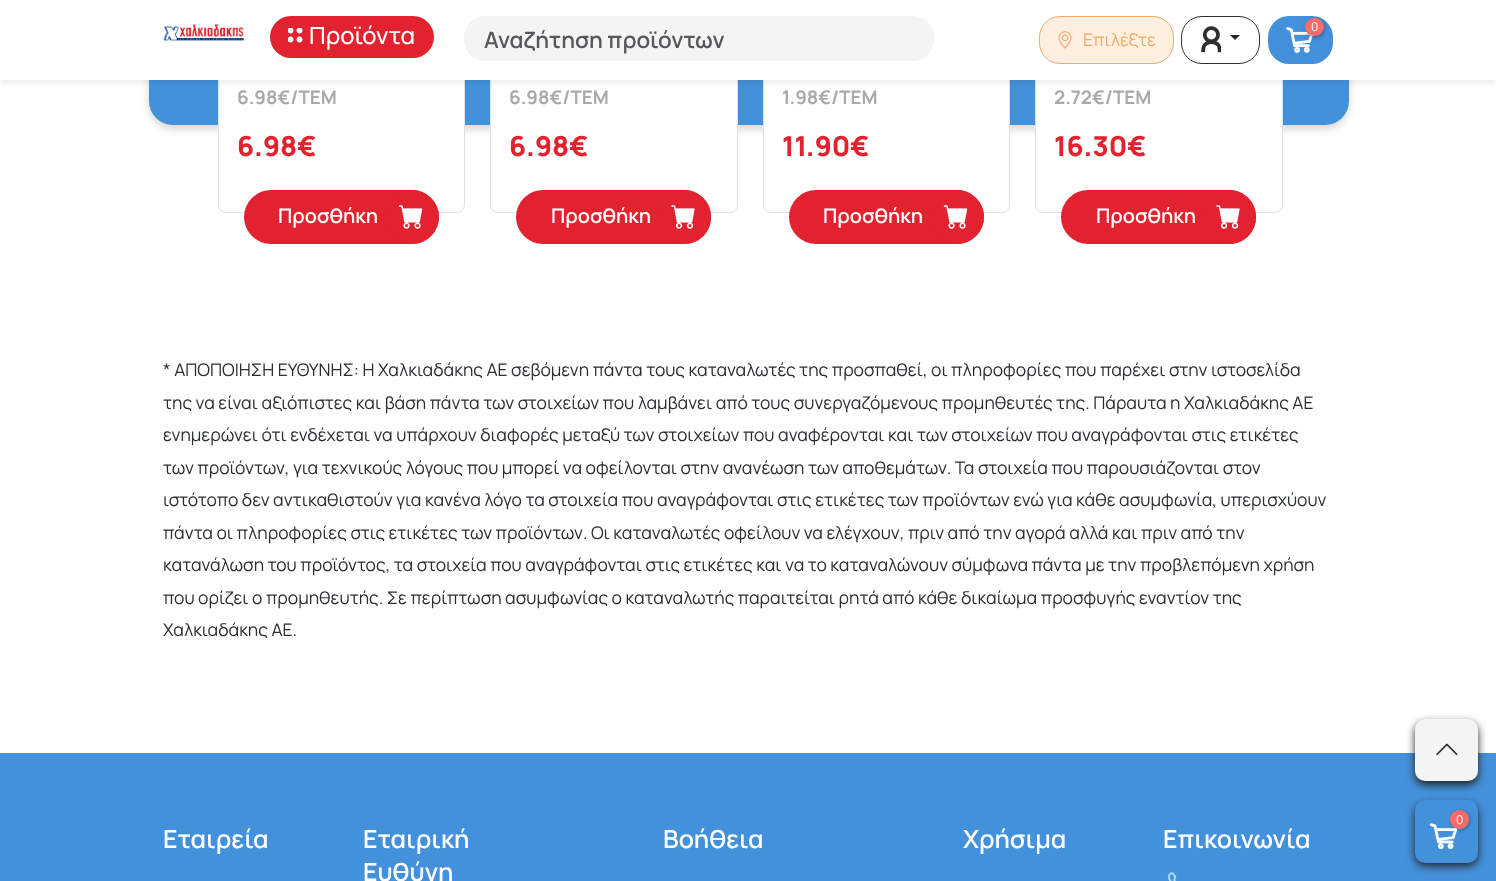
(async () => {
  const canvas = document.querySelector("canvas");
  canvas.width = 1496;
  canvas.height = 881;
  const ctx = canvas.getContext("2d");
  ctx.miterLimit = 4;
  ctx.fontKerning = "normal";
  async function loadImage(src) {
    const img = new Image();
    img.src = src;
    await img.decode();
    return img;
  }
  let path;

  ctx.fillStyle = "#ffffff";
  ctx.fillRect(0, 0, 1496, 881);
  ctx.fillStyle = "rgba(0, 0, 0, 0.16)";
  ctx.filter = "blur(4px)";
  ctx.beginPath();
  ctx.roundRect(149, -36, 1200, 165, 24);
  ctx.fill();
  ctx.filter = "none";
  ctx.fillStyle = "#4491db";
  ctx.beginPath();
  ctx.roundRect(149, -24, 1200, 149, 24);
  ctx.fill();
  ctx.fillStyle = "#ffffff";
  ctx.beginPath();
  ctx.roundRect(218.5, -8.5, 246, 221, 7.5);
  ctx.fill();
  ctx.strokeStyle = "#dee2e6";
  ctx.stroke();
  ctx.beginPath();
  ctx.roundRect(490.5, -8.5, 247, 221, 7.5);
  ctx.fill();
  ctx.stroke();
  ctx.beginPath();
  ctx.roundRect(763.5, -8.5, 246, 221, 7.5);
  ctx.fill();
  ctx.stroke();
  ctx.beginPath();
  ctx.roundRect(1035.5, -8.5, 247, 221, 7.5);
  ctx.fill();
  ctx.stroke();
  ctx.fillStyle = "rgba(0, 0, 0, 0.07)";
  ctx.filter = "blur(2.5px)";
  ctx.beginPath();
  ctx.rect(0, 3, 1496, 80);
  ctx.fill();
  ctx.filter = "none";
  ctx.fillStyle = "#ffffff";
  ctx.fillRect(0, 0, 1496, 80);
  ctx.drawImage(await loadImage("img/1.png"), 163, 24, 82, 18);
  ctx.fillStyle = "#e2222e";
  ctx.beginPath();
  ctx.roundRect(270, 16, 164, 42, 21);
  ctx.fill();
  ctx.drawImage(await loadImage("img/2.png"), 288, 28, 15, 15);
  ctx.fillStyle = "#f3f4f4";
  ctx.beginPath();
  ctx.roundRect(464, 16, 470, 45, 21);
  ctx.fill();
  ctx.fillStyle = "#4491db";
  ctx.beginPath();
  ctx.roundRect(1268, 16, 65, 48, 21);
  ctx.fill();
  ctx.drawImage(await loadImage("img/3.png"), 1286, 27, 27, 26);
  ctx.fillStyle = "rgba(0, 0, 0, 0.3)";
  ctx.filter = "blur(2px)";
  ctx.beginPath();
  ctx.roundRect(1306, 19, 19, 19, 9.5);
  ctx.fill();
  ctx.filter = "none";
  ctx.fillStyle = "#f76b6a";
  ctx.beginPath();
  ctx.roundRect(1305, 18, 19, 18, 9);
  ctx.fill();
  ctx.fillStyle = "#ffefe1";
  ctx.beginPath();
  ctx.roundRect(1039.5, 16.5, 134, 47, 20.5);
  ctx.fill();
  ctx.strokeStyle = "#f5a96a";
  ctx.stroke();
  ctx.drawImage(await loadImage("img/4.png"), 1058, 31, 14, 18);
  ctx.beginPath();
  ctx.roundRect(1181.5, 16.5, 78, 47, 20.5);
  ctx.strokeStyle = "#2f2f2f";
  ctx.stroke();
  ctx.drawImage(await loadImage("img/5.png"), 1201, 26, 20, 27);
  ctx.fillStyle = "#212529";
  path = new Path2D("M1230 35H1240L1235 40Z");
  ctx.fill(path);
  ctx.fillStyle = "#e2222e";
  ctx.beginPath();
  ctx.roundRect(244, 190, 195, 54, 27);
  ctx.fill();
  ctx.beginPath();
  ctx.arc(412, 217, 27, 0, Math.PI * 2);
  ctx.fill();
  ctx.drawImage(await loadImage("img/6.png"), 398, 205, 25, 24);
  ctx.beginPath();
  ctx.roundRect(516, 190, 195, 54, 27);
  ctx.fill();
  ctx.beginPath();
  ctx.roundRect(658, 190, 53, 54, 26.5);
  ctx.fill();
  ctx.drawImage(await loadImage("img/7.png"), 671, 205, 24, 24);
  ctx.beginPath();
  ctx.roundRect(789, 190, 195, 54, 27);
  ctx.fill();
  ctx.beginPath();
  ctx.arc(957, 217, 27, 0, Math.PI * 2);
  ctx.fill();
  ctx.drawImage(await loadImage("img/6.png"), 943, 205, 25, 24);
  ctx.beginPath();
  ctx.roundRect(1061, 190, 195, 54, 27);
  ctx.fill();
  ctx.beginPath();
  ctx.roundRect(1203, 190, 53, 54, 26.5);
  ctx.fill();
  ctx.drawImage(await loadImage("img/7.png"), 1216, 205, 24, 24);
  ctx.fillStyle = "#4491db";
  ctx.fillRect(0, 753, 1496, 128);
  ctx.fillStyle = "#222222";
  ctx.filter = "blur(4px)";
  ctx.beginPath();
  ctx.roundRect(1415, 723, 63, 62, 10);
  ctx.fill();
  ctx.filter = "none";
  ctx.fillStyle = "#f3f4f4";
  ctx.beginPath();
  ctx.roundRect(1415, 719, 63, 62, 10);
  ctx.fill();
  ctx.drawImage(await loadImage("img/8.png"), 1436, 743, 22, 13);
  ctx.fillStyle = "#222222";
  ctx.filter = "blur(4px)";
  ctx.beginPath();
  ctx.roundRect(1415, 804, 63, 62, 10);
  ctx.fill();
  ctx.filter = "none";
  ctx.fillStyle = "#4491db";
  ctx.beginPath();
  ctx.roundRect(1415, 800, 63, 63, 10);
  ctx.fill();
  ctx.fillStyle = "rgba(0, 0, 0, 0.3)";
  ctx.filter = "blur(2px)";
  ctx.beginPath();
  ctx.roundRect(1451, 811, 19, 19, 9.5);
  ctx.fill();
  ctx.filter = "none";
  ctx.fillStyle = "#f76b6a";
  ctx.beginPath();
  ctx.arc(1459.5, 819.5, 9.5, 0, Math.PI * 2);
  ctx.fill();
  ctx.drawImage(await loadImage("img/10.png"), 1167, 872, 10, 9);
  ctx.font = "500 23.75px Manrope";
  ctx.fillStyle = "#ffffff";
  ctx.fillText("Προϊόντα", 309, 44);
  ctx.font = "600 22.5px Manrope";
  ctx.fillStyle = "#56595c";
  ctx.fillText("Αναζήτηση προϊόντων", 484, 48);
  ctx.font = "12px Manrope";
  ctx.fillStyle = "#ffffff";
  ctx.fillText("0", 1311, 31);
  ctx.font = "17.5px Manrope";
  ctx.fillStyle = "#f5a96a";
  ctx.fillText("Επιλέξτε", 1083, 46);
  ctx.font = "bold 18.75px Manrope";
  ctx.fillStyle = "#aaaaaa";
  ctx.fillText("6.98€/ΤΕΜ", 237, 104);
  ctx.font = "800 27.5px Manrope";
  ctx.fillStyle = "#e2222e";
  ctx.fillText("6.98€", 237, 156);
  ctx.font = "600 20px Manrope";
  ctx.fillStyle = "#ffffff";
  ctx.fillText("Προσθήκη", 278, 223);
  ctx.font = "bold 18.75px Manrope";
  ctx.fillStyle = "#aaaaaa";
  ctx.fillText("6.98€/ΤΕΜ", 509, 104);
  ctx.font = "800 27.5px Manrope";
  ctx.fillStyle = "#e2222e";
  ctx.fillText("6.98€", 509, 156);
  ctx.font = "600 20px Manrope";
  ctx.fillStyle = "#ffffff";
  ctx.fillText("Προσθήκη", 551, 223);
  ctx.font = "bold 18.75px Manrope";
  ctx.fillStyle = "#aaaaaa";
  ctx.fillText("1.98€/ΤΕΜ", 782, 104);
  ctx.font = "800 27.5px Manrope";
  ctx.fillStyle = "#e2222e";
  ctx.fillText("11.90€", 782, 156);
  ctx.font = "600 20px Manrope";
  ctx.fillStyle = "#ffffff";
  ctx.fillText("Προσθήκη", 823, 223);
  ctx.font = "bold 18.75px Manrope";
  ctx.fillStyle = "#aaaaaa";
  ctx.fillText("2.72€/ΤΕΜ", 1054, 104);
  ctx.font = "800 27.5px Manrope";
  ctx.fillStyle = "#e2222e";
  ctx.fillText("16.30€", 1054, 156);
  ctx.font = "600 20px Manrope";
  ctx.fillStyle = "#ffffff";
  ctx.fillText("Προσθήκη", 1096, 223);
  ctx.font = "17.5px Manrope";
  ctx.fillStyle = "#292e31";
  for (const [text, x, y] of [
    ["* ΑΠΟΠΟΙΗΣΗ ΕΥΘΥΝΗΣ: Η Χαλκιαδάκης ΑΕ σεβόμενη πάντα τους καταναλωτές της προσπαθεί, οι πληροφορίες που παρέχει στην ιστοσελίδα", 163, 376],
    ["της να είναι αξιόπιστες και βάση πάντα των στοιχείων που λαμβάνει από τους συνεργαζόμενους προμηθευτές της. Πάραυτα η Χαλκιαδάκης ΑΕ", 163, 409],
    ["ενημερώνει ότι ενδέχεται να υπάρχουν διαφορές μεταξύ των στοιχείων που αναφέρονται και των στοιχείων που αναγράφονται στις ετικέτες", 163, 441],
    ["των προϊόντων, για τεχνικούς λόγους που μπορεί να οφείλονται στην ανανέωση των αποθεμάτων. Τα στοιχεία που παρουσιάζονται στον", 163, 474],
    ["ιστότοπο δεν αντικαθιστούν για κανένα λόγο τα στοιχεία που αναγράφονται στις ετικέτες των προϊόντων ενώ για κάθε ασυμφωνία, υπερισχύουν", 163, 506],
    ["πάντα οι πληροφορίες στις ετικέτες των προϊόντων. Οι καταναλωτές οφείλουν να ελέγχουν, πριν από την αγορά αλλά και πριν από την", 163, 539],
    ["κατανάλωση του προϊόντος, τα στοιχεία που αναγράφονται στις ετικέτες και να το καταναλώνουν σύμφωνα πάντα με την προβλεπόμενη χρήση", 163, 571],
    ["που ορίζει ο προμηθευτής. Σε περίπτωση ασυμφωνίας ο καταναλωτής παραιτείται ρητά από κάθε δικαίωμα προσφυγής εναντίον της", 163, 604],
    ["Χαλκιαδάκης ΑΕ.", 163, 636],
  ]) {
    ctx.fillText(text, x, y);
  }
  ctx.font = "12px Manrope";
  ctx.fillStyle = "#ffffff";
  ctx.fillText("0", 1456, 824);
  ctx.drawImage(await loadImage("img/9.png"), 1429, 823, 29, 27);
  ctx.font = "600 25px Manrope";
  for (const [text, x, y] of [
    ["Εταιρεία", 163, 848],
    ["Εταιρική", 363, 848],
    ["Ευθύνη", 363, 881],
    ["Βοήθεια", 663, 848],
    ["Χρήσιμα", 963, 848],
    ["Επικοινωνία", 1163, 848],
  ]) {
    ctx.fillText(text, x, y);
  }
})();
